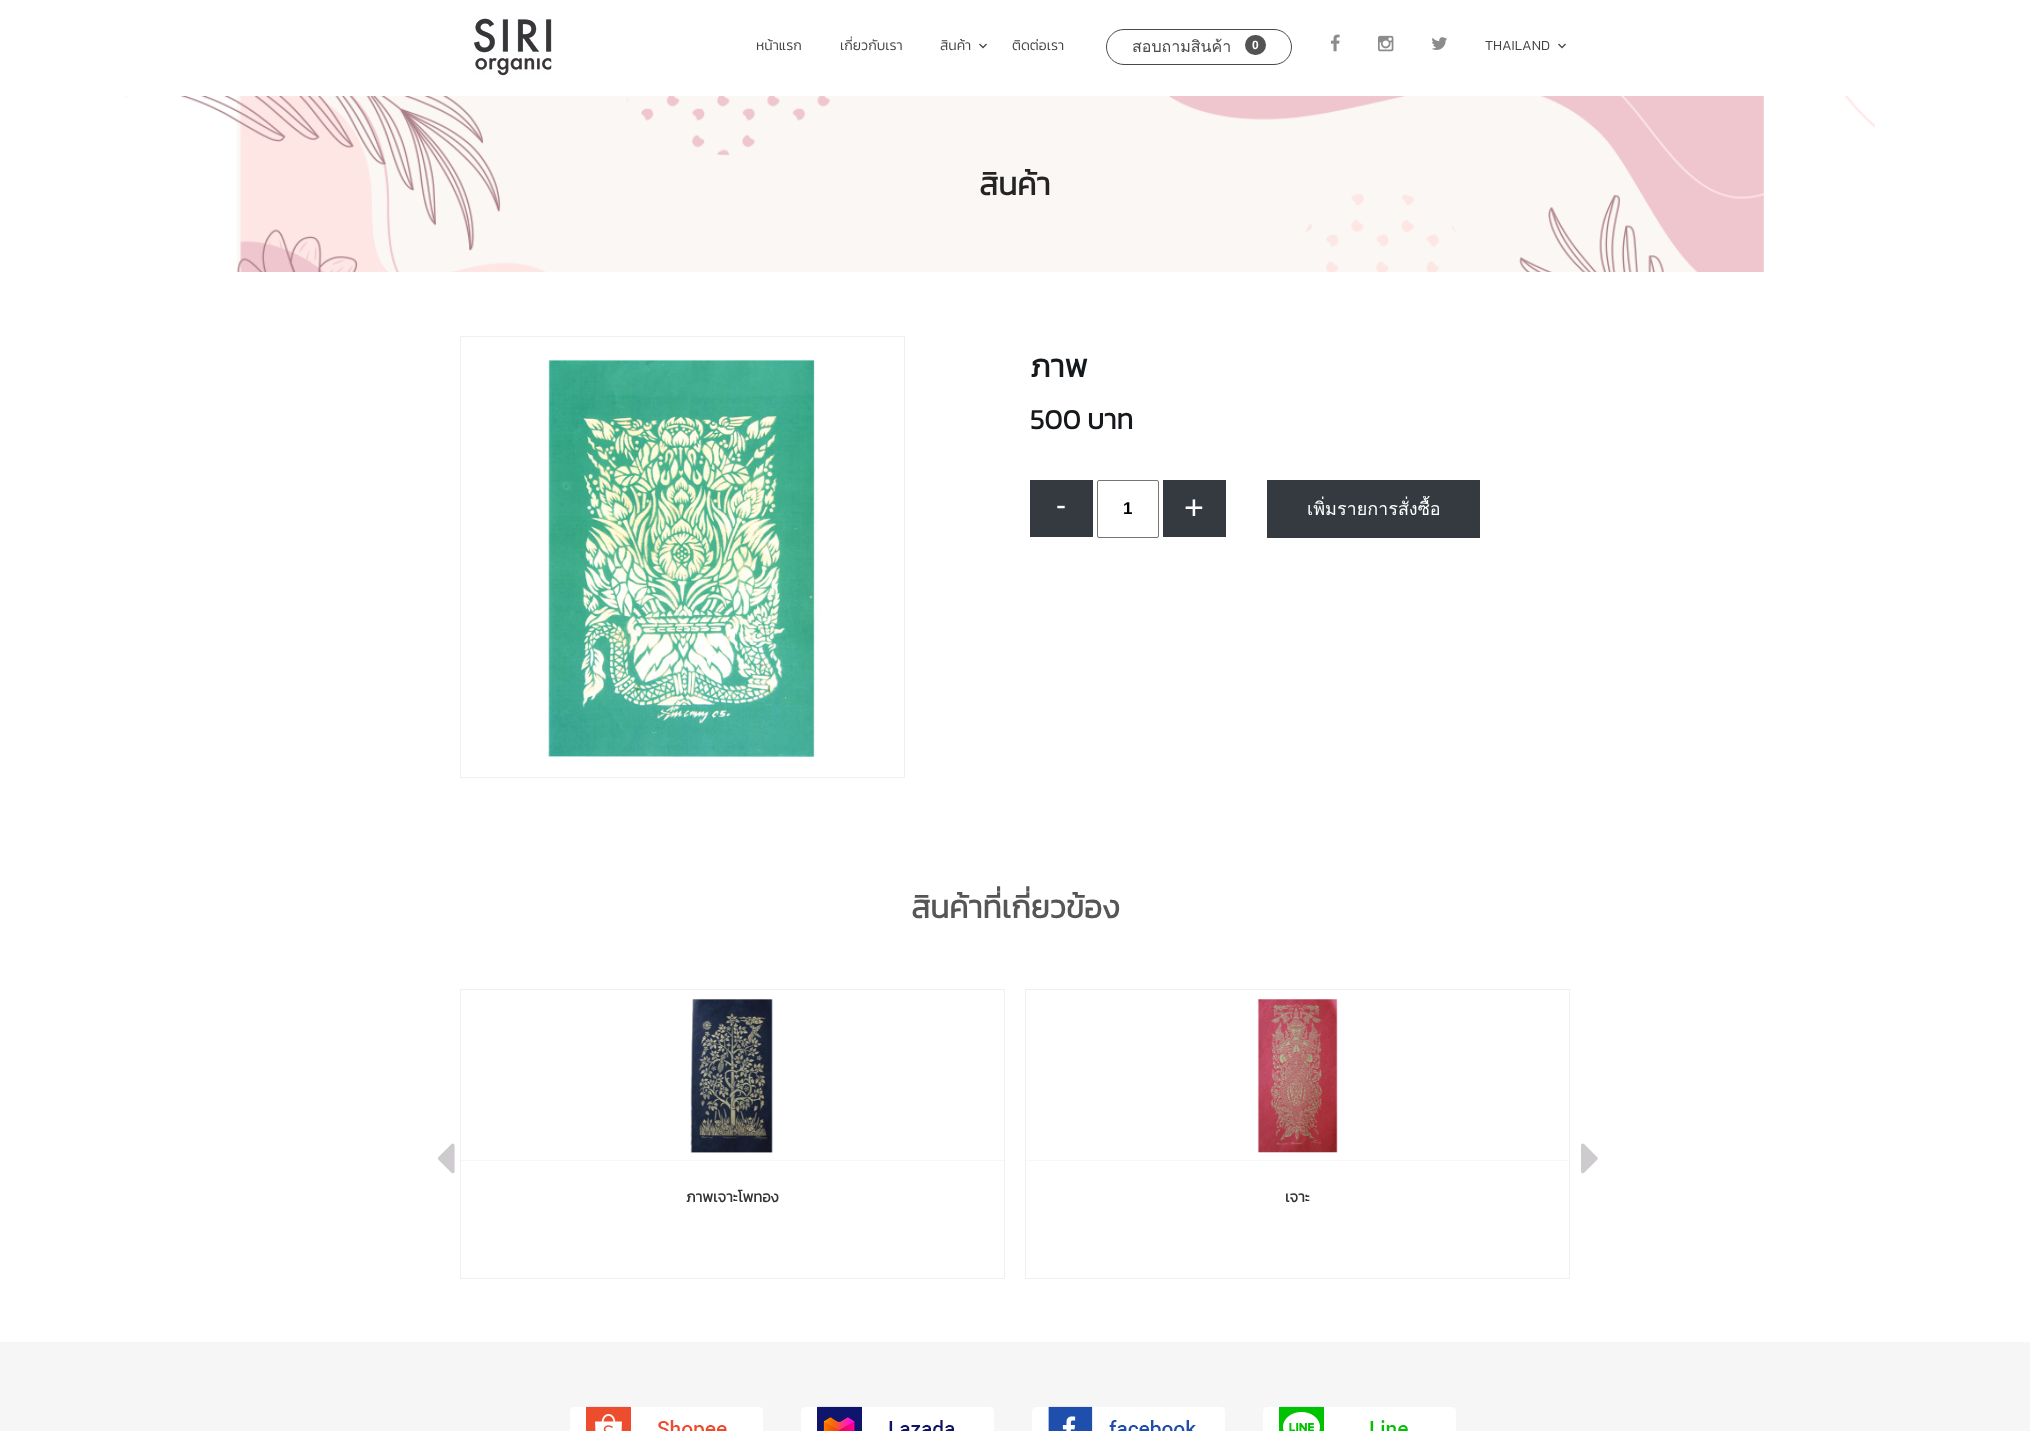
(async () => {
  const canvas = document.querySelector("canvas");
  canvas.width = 2030;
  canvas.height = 1431;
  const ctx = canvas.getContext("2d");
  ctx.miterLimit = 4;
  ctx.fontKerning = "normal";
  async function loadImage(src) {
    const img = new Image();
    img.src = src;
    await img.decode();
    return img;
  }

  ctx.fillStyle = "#ffffff";
  ctx.fillRect(0, 0, 2030, 1431);
  ctx.drawImage(await loadImage("img/1.png"), 474, 18, 78, 58);
  ctx.drawImage(await loadImage("img/2.png"), 979, 43, 8, 6);
  ctx.beginPath();
  ctx.roundRect(1106.5, 29.5, 185, 35, 17.5);
  ctx.strokeStyle = "#494949";
  ctx.stroke();
  ctx.fillStyle = "#535353";
  ctx.beginPath();
  ctx.roundRect(1245, 35, 21, 20, 10);
  ctx.fill();
  ctx.drawImage(await loadImage("img/3.png"), 1330, 34, 10, 18);
  ctx.drawImage(await loadImage("img/4.png"), 1378, 35, 16, 17);
  ctx.drawImage(await loadImage("img/5.png"), 1431, 37, 17, 13);
  ctx.drawImage(await loadImage("img/2.png"), 1558, 43, 8, 6);
  ctx.drawImage(await loadImage("img/6.png"), 126, 96, 1749, 176);
  ctx.strokeStyle = "#efefef";
  ctx.strokeRect(460.5, 336.5, 444, 441);
  ctx.drawImage(await loadImage("img/7.png"), 537, 359, 284, 403);
  ctx.fillStyle = "#343a40";
  ctx.fillRect(1030, 480, 63, 57);
  ctx.beginPath();
  ctx.roundRect(1097.5, 480.5, 61, 57, 1.5);
  ctx.strokeStyle = "#767676";
  ctx.stroke();
  ctx.fillRect(1163, 480, 63, 57);
  ctx.fillRect(1267, 480, 213, 58);
  ctx.drawImage(await loadImage("img/8.png"), 437, 1143, 18, 31);
  ctx.drawImage(await loadImage("img/9.png"), 1581, 1143, 17, 31);
  ctx.strokeStyle = "#efefef";
  ctx.strokeRect(460.5, 989.5, 544, 289);
  ctx.drawImage(await loadImage("img/10.png"), 690, 998, 83, 155);
  ctx.fillStyle = "#f7f7f7";
  ctx.fillRect(461, 1160, 543, 1);
  ctx.strokeRect(1025.5, 989.5, 544, 289);
  ctx.drawImage(await loadImage("img/11.png"), 1257, 999, 81, 154);
  ctx.fillRect(1026, 1160, 543, 1);
  ctx.fillStyle = "#f6f6f6";
  ctx.fillRect(0, 1342, 2030, 89);
  ctx.drawImage(await loadImage("img/12.png"), 570, 1406, 193, 25);
  ctx.drawImage(await loadImage("img/13.png"), 801, 1406, 193, 25);
  ctx.drawImage(await loadImage("img/14.png"), 1032, 1406, 193, 25);
  ctx.drawImage(await loadImage("img/15.png"), 1263, 1406, 193, 25);
  ctx.font = "300 14px Kanit";
  ctx.fillStyle = "#434343";
  for (const [text, x, y] of [
    ["หน้าแรก", 756, 50],
    ["เกี่ยวกับเรา", 840, 50],
    ["สินค้า", 940, 50],
    ["ติดต่อเรา", 1012, 50],
  ]) {
    ctx.fillText(text, x, y);
  }
  ctx.font = "16px Loma";
  ctx.fillStyle = "#494949";
  ctx.fillText("สอบถามสินค้า", 1132, 52);
  ctx.font = "bold 12px Liberation Sans";
  ctx.fillStyle = "#ffffff";
  ctx.fillText("0", 1252, 49);
  ctx.font = "300 14px Kanit";
  ctx.fillStyle = "#434343";
  ctx.fillText("THAILAND", 1485, 50);
  ctx.font = "bold 32px Kanit";
  ctx.fillStyle = "#242424";
  ctx.fillText("สินค้า", 979, 195);
  ctx.fillStyle = "#15191c";
  ctx.fillText("ภาพ", 1030, 377);
  ctx.font = "bold 28px Kanit";
  ctx.fillText("500 บาท", 1030, 429);
  ctx.font = "30px Liberation Sans";
  ctx.fillStyle = "#ffffff";
  ctx.fillText("-", 1056, 515);
  ctx.font = "bold 17px Liberation Sans";
  ctx.fillStyle = "#000000";
  ctx.fillText("1", 1123, 514);
  ctx.font = "34px Liberation Sans";
  ctx.fillStyle = "#ffffff";
  ctx.fillText("+", 1184, 519);
  ctx.font = "18px Loma";
  ctx.fillText("เพิ่มรายการสั่งซื้อ", 1307, 515);
  ctx.font = "bold 32px Kanit";
  ctx.fillStyle = "#565656";
  ctx.fillText("สินค้าที่เกี่ยวข้อง", 911, 918);
  ctx.font = "bold 15px Kanit";
  ctx.fillStyle = "#333333";
  ctx.fillText("ภาพเจาะโพทอง", 686, 1202);
  ctx.fillText("เจาะ", 1285, 1202);
})();
